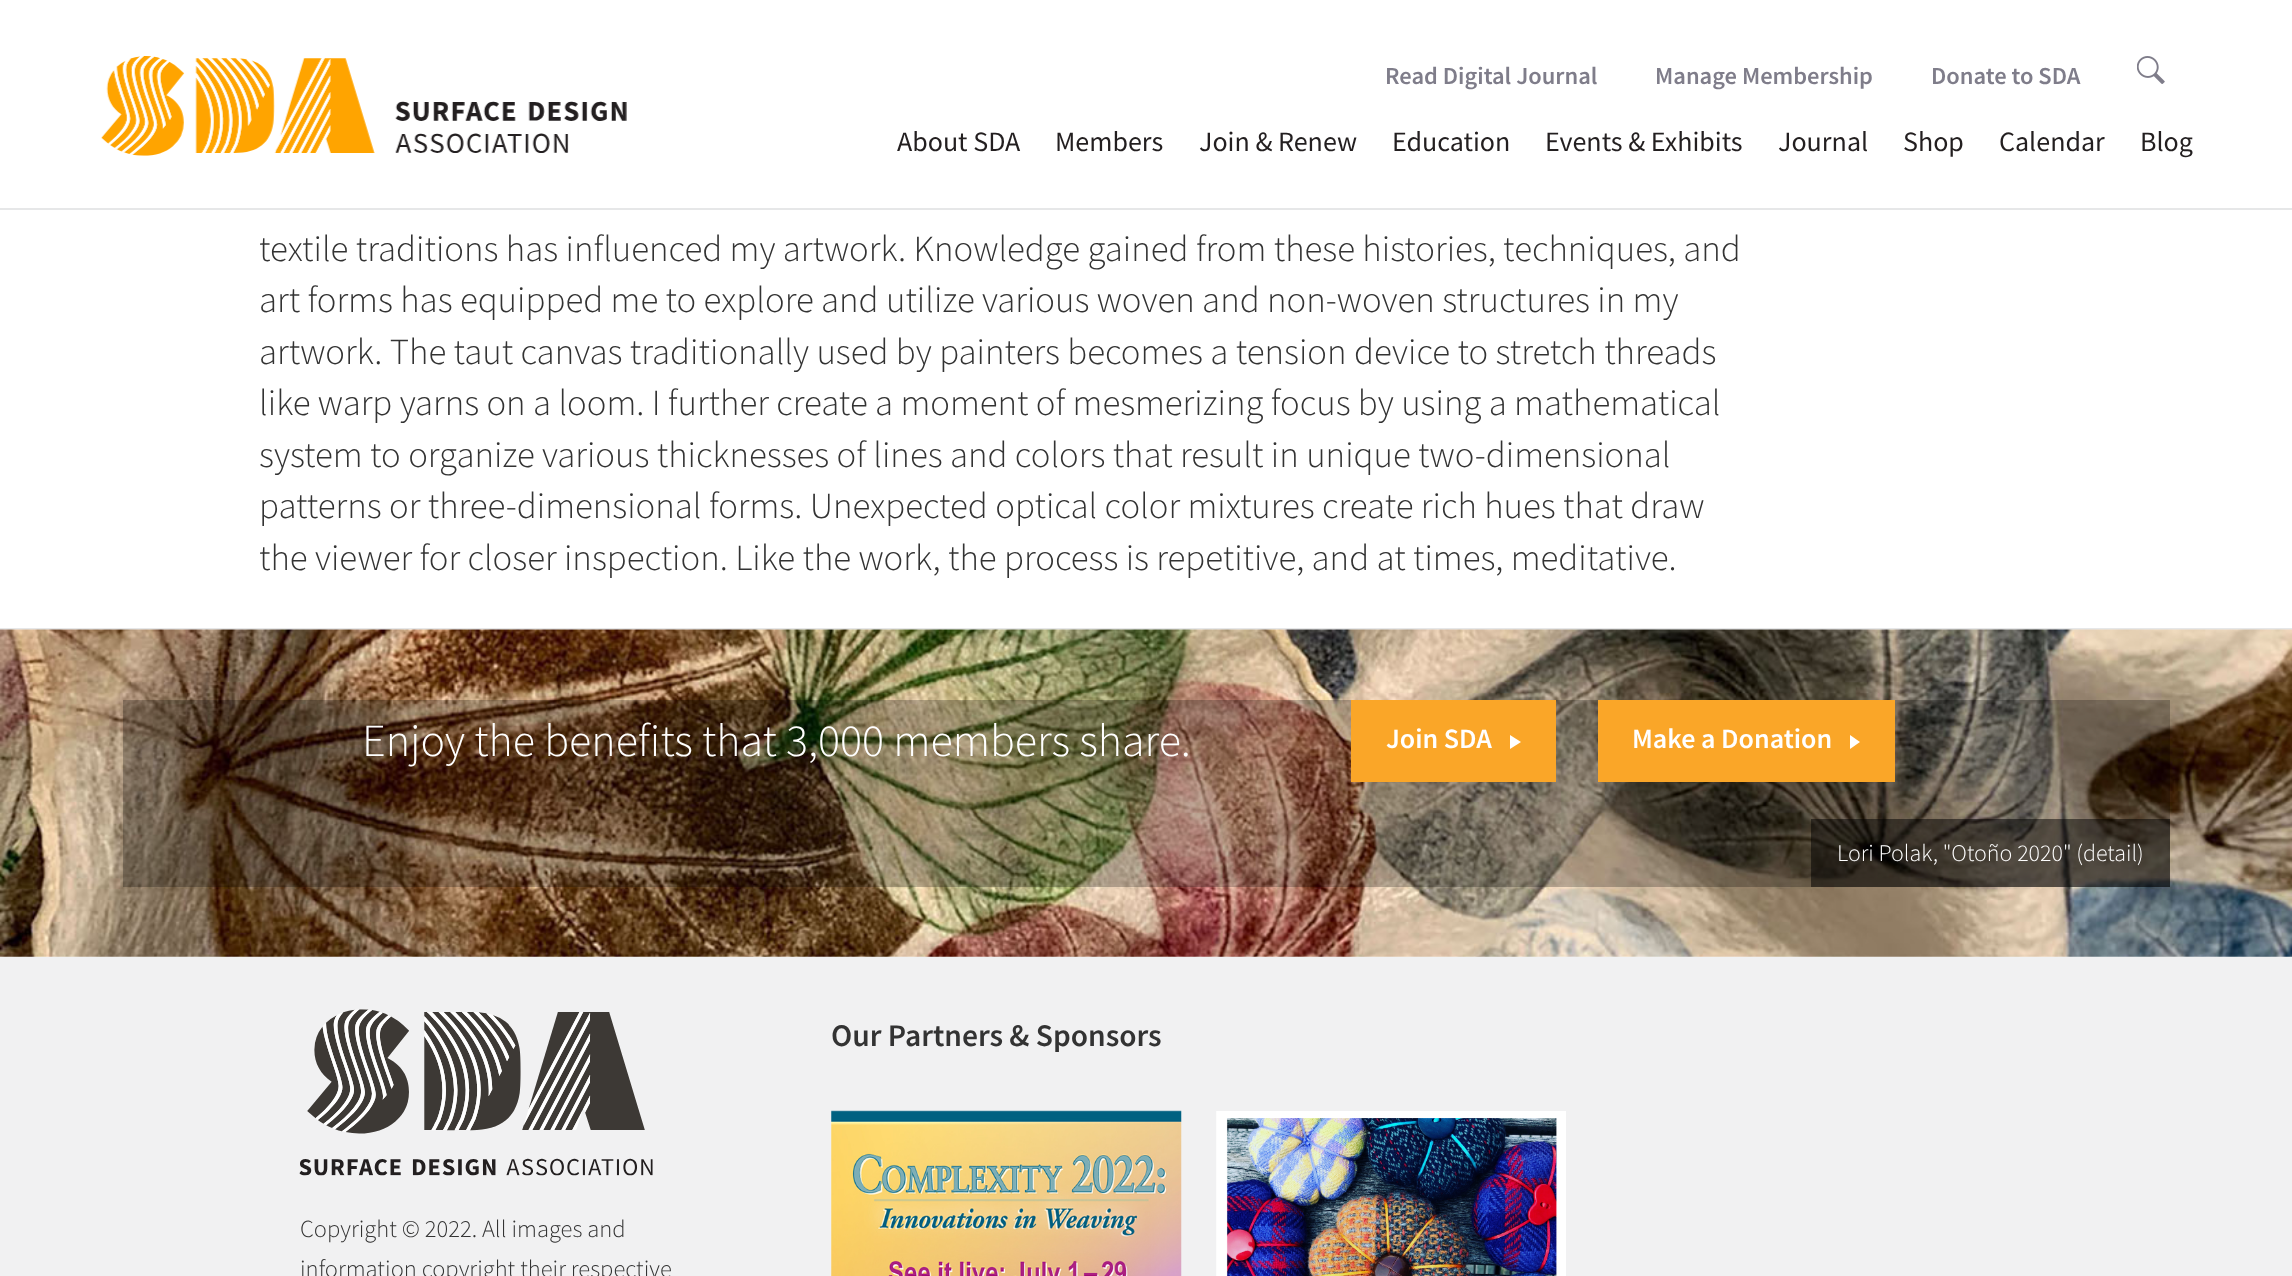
(async () => {
  const canvas = document.querySelector("canvas");
  canvas.width = 2292;
  canvas.height = 1276;
  const ctx = canvas.getContext("2d");
  ctx.miterLimit = 4;
  ctx.fontKerning = "normal";
  async function loadImage(src) {
    const img = new Image();
    img.src = src;
    await img.decode();
    return img;
  }
  let path;

  ctx.fillStyle = "#ffffff";
  ctx.fillRect(0, 0, 2292, 1276);
  ctx.fillStyle = "#e6e7e8";
  ctx.fillRect(0, 208, 2292, 2);
  ctx.drawImage(await loadImage("img/1.png"), 101, 56, 526, 100);
  ctx.drawImage(await loadImage("img/2.png"), 2137, 56, 28, 28);
  ctx.fillRect(0, 628, 2292, 2);
  ctx.drawImage(await loadImage("img/3.png"), 0, 629, 2292, 328);
  ctx.fillStyle = "rgba(0, 0, 0, 0.25)";
  ctx.fillRect(123, 700, 2047, 187);
  ctx.fillStyle = "#faa628";
  ctx.fillRect(1351, 700, 205, 82);
  ctx.fillStyle = "#ffffff";
  path = new Path2D("M1510 749V735L1521 742Z");
  ctx.fill(path);
  ctx.fillStyle = "#faa628";
  ctx.fillRect(1598, 700, 297, 82);
  ctx.fillStyle = "#ffffff";
  path = new Path2D("M1850 749V735L1860 742Z");
  ctx.fill(path);
  ctx.fillStyle = "rgba(0, 0, 0, 0.5)";
  ctx.fillRect(1811, 819, 359, 68);
  ctx.fillStyle = "#f1f1f2";
  ctx.fillRect(0, 957, 2292, 319);
  ctx.drawImage(await loadImage("img/4.png"), 831, 1110, 351, 166);
  ctx.drawImage(await loadImage("img/5.png"), 1216, 1111, 350, 165);
  ctx.drawImage(await loadImage("img/6.png"), 299, 1009, 354, 167);
  ctx.font = "600 24.5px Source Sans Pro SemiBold";
  ctx.fillStyle = "#7f7d8a";
  for (const [text, x, y] of [
    ["Read Digital Journal", 1385, 84],
    ["Manage Membership", 1655, 84],
    ["Donate to SDA", 1931, 84],
  ]) {
    ctx.fillText(text, x, y);
  }
  ctx.font = "28px Source Sans Pro";
  ctx.fillStyle = "#231f20";
  for (const [text, x, y] of [
    ["About SDA", 897, 151],
    ["Members", 1055, 151],
    ["Join & Renew", 1199, 151],
    ["Education", 1392, 151],
    ["Events & Exhibits", 1545, 151],
    ["Journal", 1778, 151],
    ["Shop", 1903, 151],
    ["Calendar", 1999, 151],
    ["Blog", 2140, 151],
  ]) {
    ctx.fillText(text, x, y);
  }
  ctx.font = "300 36.75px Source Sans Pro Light";
  ctx.fillStyle = "#333333";
  for (const [text, x, y] of [
    ["textile traditions has influenced my artwork. Knowledge gained from these histories, techniques, and", 259, 261],
    ["art forms has equipped me to explore and utilize various woven and non-woven structures in my", 259, 312],
    ["artwork. The taut canvas traditionally used by painters becomes a tension device to stretch threads", 259, 364],
    ["like warp yarns on a loom. I further create a moment of mesmerizing focus by using a mathematical", 259, 415],
    ["system to organize various thicknesses of lines and colors that result in unique two-dimensional", 259, 467],
    ["patterns or three-dimensional forms. Unexpected optical color mixtures create rich hues that draw", 259, 518],
    ["the viewer for closer inspection. Like the work, the process is repetitive, and at times, meditative.", 259, 570],
  ]) {
    ctx.fillText(text, x, y);
  }
  ctx.font = "300 45.9px Source Sans Pro Light";
  ctx.fillStyle = "#ffffff";
  ctx.fillText("Enjoy the benefits that 3,000 members share.", 362, 756);
  ctx.font = "600 28px Source Sans Pro SemiBold";
  ctx.fillText("Join SDA", 1386, 748);
  ctx.fillText("Make a Donation", 1632, 748);
  ctx.font = "300 23.9px Source Sans Pro Light";
  ctx.fillText("Lori Polak, \"Otoño 2020\" (detail)", 1837, 861);
  ctx.font = "600 31.5px Source Sans Pro SemiBold";
  ctx.fillStyle = "#333333";
  ctx.fillText("Our Partners & Sponsors", 831, 1046);
  ctx.font = "300 24.5px Source Sans Pro Light";
  ctx.fillText("Copyright © 2022. All images and", 300, 1237);
  ctx.fillText("information copyright their respective", 300, 1277);
})();
